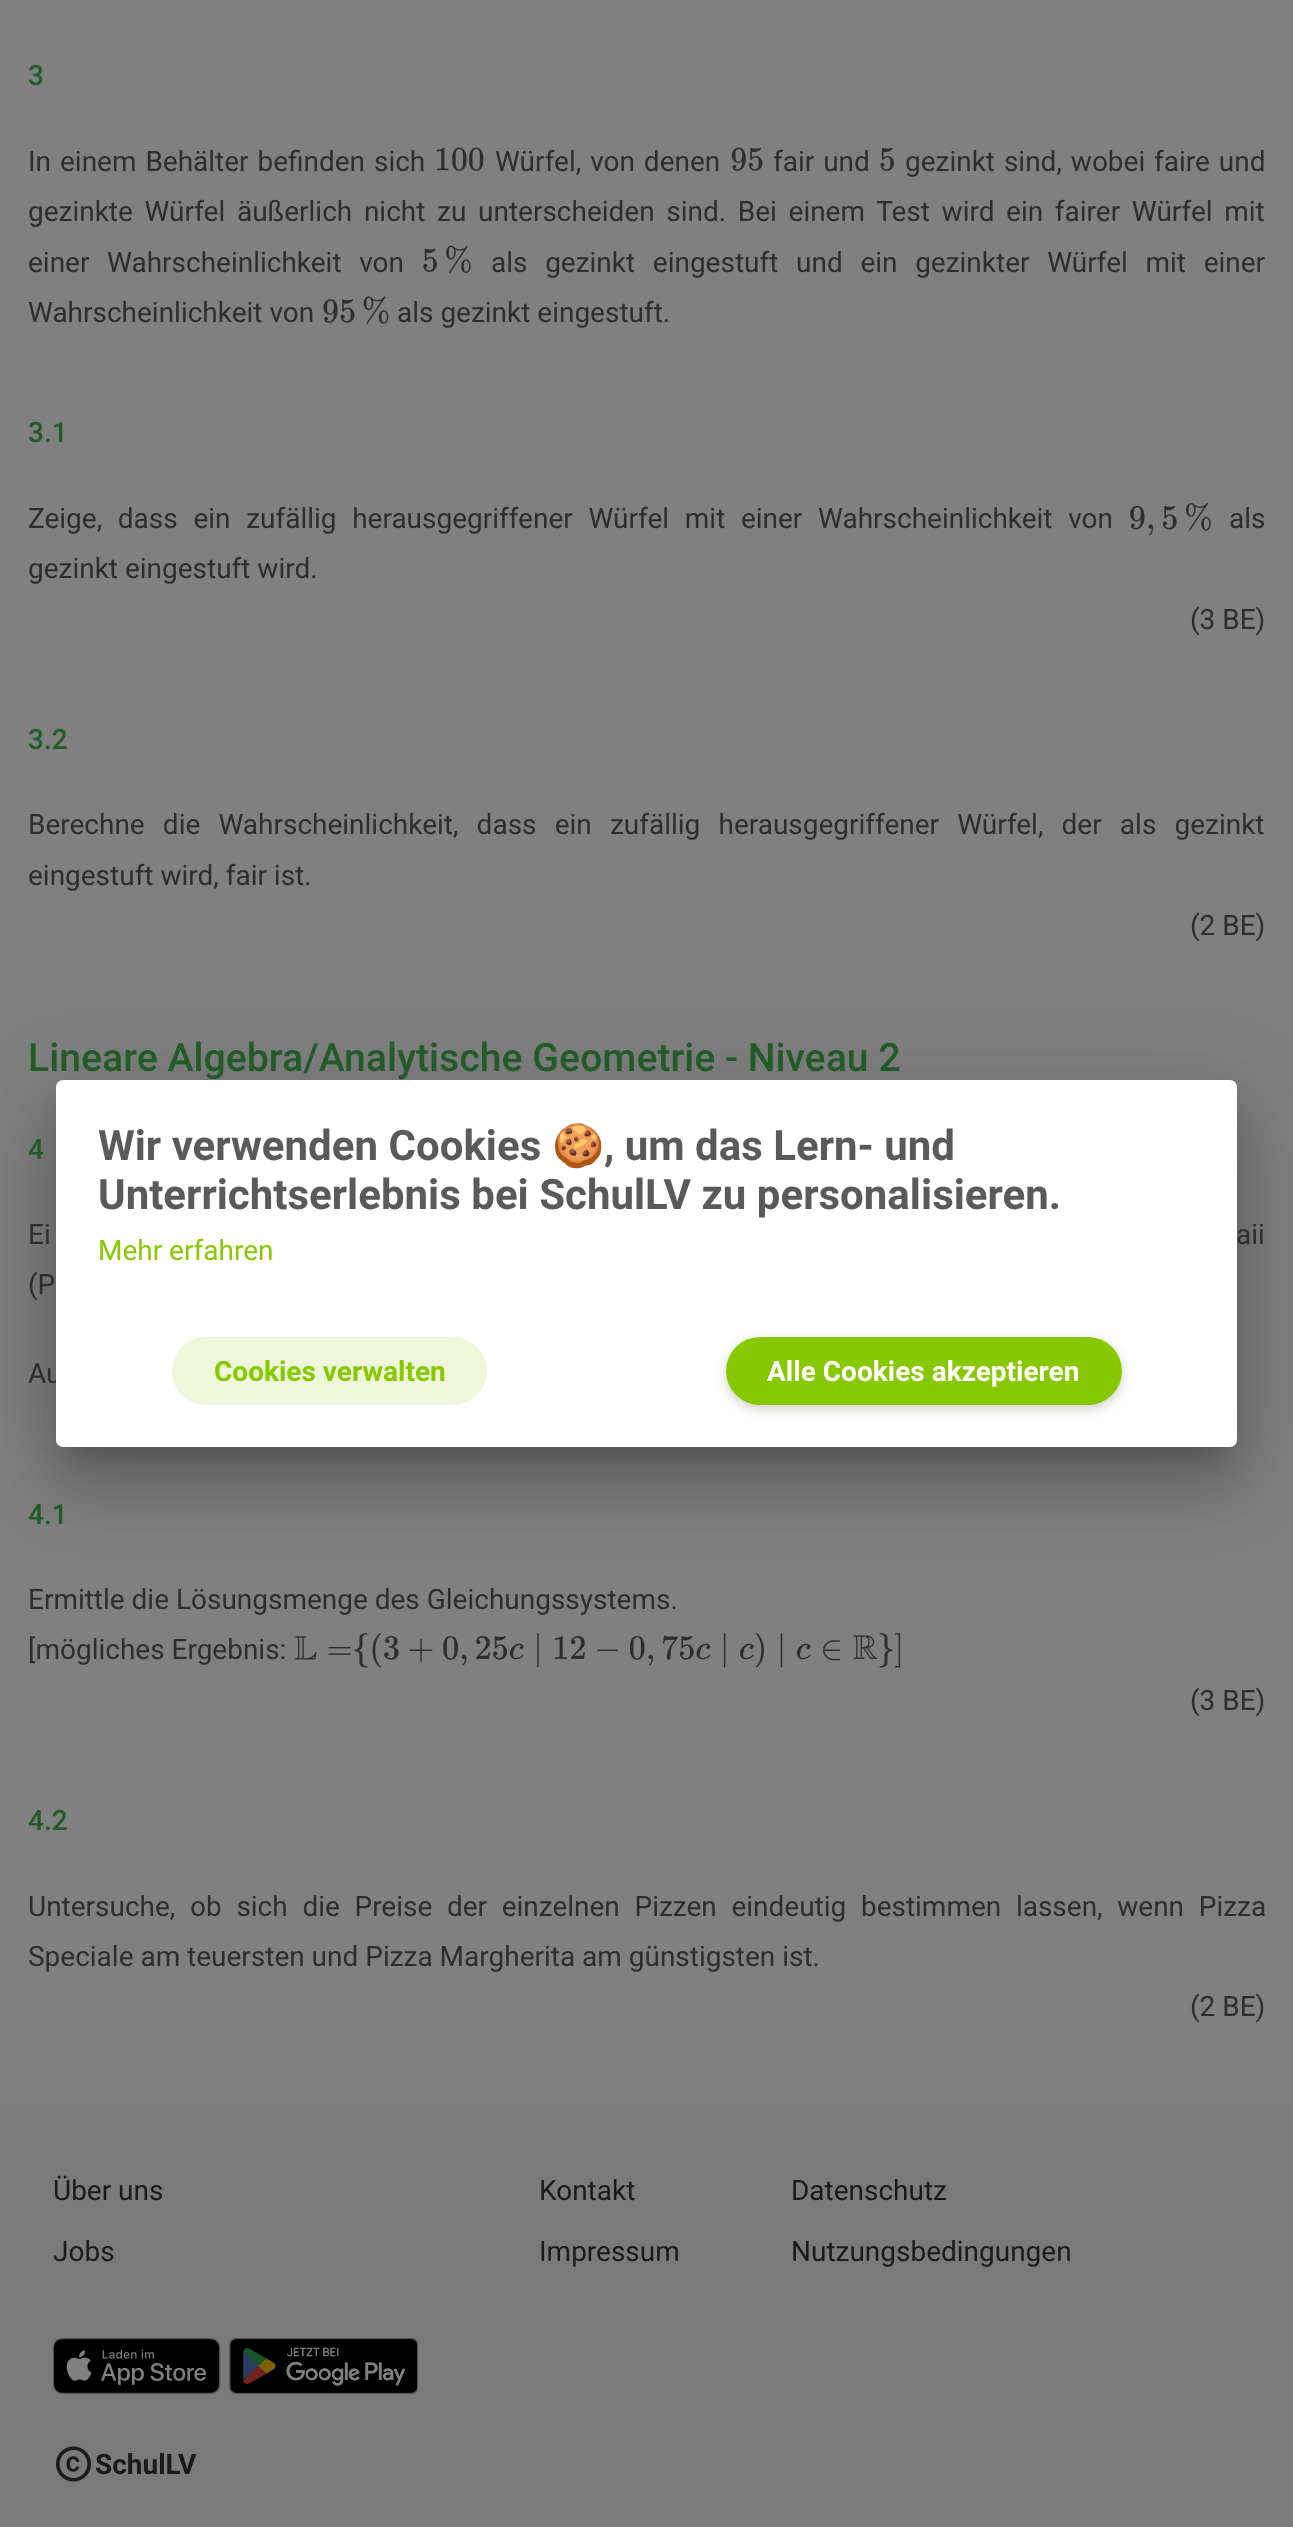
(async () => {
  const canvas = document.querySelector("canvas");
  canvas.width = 1293;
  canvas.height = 2527;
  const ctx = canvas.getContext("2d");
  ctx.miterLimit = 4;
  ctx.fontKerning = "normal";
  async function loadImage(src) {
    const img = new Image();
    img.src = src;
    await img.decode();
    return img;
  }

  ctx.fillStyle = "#808080";
  ctx.fillRect(0, 0, 1293, 2527);
  ctx.drawImage(await loadImage("img/1.png"), 436, 147, 48, 24);
  ctx.drawImage(await loadImage("img/2.png"), 731, 147, 32, 24);
  ctx.drawImage(await loadImage("img/3.png"), 880, 147, 14, 24);
  ctx.drawImage(await loadImage("img/4.png"), 423, 245, 48, 29);
  ctx.drawImage(await loadImage("img/5.png"), 323, 296, 66, 28);
  ctx.drawImage(await loadImage("img/6.png"), 1130, 503, 81, 33);
  ctx.drawImage(await loadImage("img/7.png"), 295, 1636, 56, 24);
  ctx.drawImage(await loadImage("img/8.png"), 354, 1633, 547, 35);
  ctx.fillStyle = "#7a7a7a";
  ctx.fillRect(0, 2104, 1293, 423);
  ctx.drawImage(await loadImage("img/9.png"), 53, 2338, 168, 56);
  ctx.drawImage(await loadImage("img/10.png"), 229, 2338, 189, 56);
  ctx.drawImage(await loadImage("img/11.png"), 56, 2446, 35, 36);
  ctx.fillStyle = "rgba(0, 0, 0, 0.12)";
  ctx.filter = "blur(40px)";
  ctx.beginPath();
  ctx.roundRect(42, 1082, 1209, 395, 21);
  ctx.fill();
  ctx.filter = "none";
  ctx.fillStyle = "rgba(0, 0, 0, 0.14)";
  ctx.filter = "blur(33px)";
  ctx.beginPath();
  ctx.roundRect(51, 1117, 1192, 378, 12);
  ctx.fill();
  ctx.filter = "none";
  ctx.fillStyle = "rgba(0, 0, 0, 0.2)";
  ctx.filter = "blur(13px)";
  ctx.beginPath();
  ctx.rect(68, 1111, 1157, 343);
  ctx.fill();
  ctx.filter = "none";
  ctx.font = "500 28px Roboto";
  ctx.fillStyle = "#225a28";
  ctx.fillText("3", 28, 85);
  ctx.wordSpacing = "2px";
  ctx.font = "28px Roboto";
  ctx.fillStyle = "#2d2d2d";
  for (const [text, x, y] of [
    ["In einem Behälter befinden sich", 28, 171],
    ["Würfel, von denen", 495, 171],
    ["fair und", 773, 171],
    ["gezinkt sind, wobei faire und", 905, 171],
  ]) {
    ctx.fillText(text, x, y);
  }
  ctx.wordSpacing = "4.75px";
  ctx.fillText("gezinkte Würfel äußerlich nicht zu unterscheiden sind. Bei einem Test wird ein fairer Würfel mit", 28, 221);
  ctx.wordSpacing = "10.75px";
  ctx.fillText("einer Wahrscheinlichkeit von", 28, 272);
  ctx.fillText("als gezinkt eingestuft und ein gezinkter Würfel mit einer", 491, 272);
  ctx.wordSpacing = "0px";
  ctx.fillText("Wahrscheinlichkeit von", 28, 322);
  ctx.fillText("als gezinkt eingestuft.", 397, 322);
  ctx.font = "500 28px Roboto";
  ctx.fillStyle = "#225a28";
  ctx.fillText("3.1", 28, 442);
  ctx.wordSpacing = "8.75px";
  ctx.font = "28px Roboto";
  ctx.fillStyle = "#2d2d2d";
  ctx.fillText("Zeige, dass ein zufällig herausgegriffener Würfel mit einer Wahrscheinlichkeit von", 28, 528);
  ctx.wordSpacing = "0px";
  for (const [text, x, y] of [
    ["als", 1229, 528],
    ["gezinkt eingestuft wird.", 28, 578],
    ["(3 BE)", 1190, 629],
  ]) {
    ctx.fillText(text, x, y);
  }
  ctx.font = "500 28px Roboto";
  ctx.fillStyle = "#225a28";
  ctx.fillText("3.2", 28, 749);
  ctx.wordSpacing = "11.25px";
  ctx.font = "28px Roboto";
  ctx.fillStyle = "#2d2d2d";
  ctx.fillText("Berechne die Wahrscheinlichkeit, dass ein zufällig herausgegriffener Würfel, der als gezinkt", 28, 834);
  ctx.wordSpacing = "0px";
  ctx.fillText("eingestuft wird, fair ist.", 28, 885);
  ctx.fillText("(2 BE)", 1190, 935);
  ctx.font = "500 39.2px Roboto";
  ctx.fillStyle = "#225a28";
  ctx.fillText("Lineare Algebra/Analytische Geometrie - Niveau 2", 28, 1071);
  ctx.font = "500 28px Roboto";
  ctx.fillText("4", 28, 1159);
  ctx.wordSpacing = "5px";
  ctx.font = "28px Roboto";
  ctx.fillStyle = "#2d2d2d";
  ctx.fillText("Ei", 28, 1244);
  ctx.fillText("aii", 1236, 1244);
  ctx.wordSpacing = "0px";
  ctx.fillText("(P", 28, 1294);
  ctx.fillText("Au", 28, 1383);
  ctx.font = "500 28px Roboto";
  ctx.fillStyle = "#225a28";
  ctx.fillText("4.1", 28, 1524);
  ctx.font = "28px Roboto";
  ctx.fillStyle = "#2d2d2d";
  for (const [text, x, y] of [
    ["Ermittle die Lösungsmenge des Gleichungssystems.", 28, 1609],
    ["[mögliches Ergebnis:", 28, 1659],
    ["(3 BE)", 1190, 1710],
  ]) {
    ctx.fillText(text, x, y);
  }
  ctx.font = "500 28px Roboto";
  ctx.fillStyle = "#225a28";
  ctx.fillText("4.2", 28, 1830);
  ctx.wordSpacing = "7.75px";
  ctx.font = "28px Roboto";
  ctx.fillStyle = "#2d2d2d";
  ctx.fillText("Untersuche, ob sich die Preise der einzelnen Pizzen eindeutig bestimmen lassen, wenn Pizza", 28, 1916);
  ctx.wordSpacing = "0px";
  ctx.fillText("Speciale am teuersten und Pizza Margherita am günstigsten ist.", 28, 1966);
  ctx.fillText("(2 BE)", 1190, 2016);
  ctx.fillStyle = "#1a1a1a";
  for (const [text, x, y] of [
    ["Über uns", 53, 2200],
    ["Jobs", 53, 2261],
    ["Kontakt", 539, 2200],
    ["Impressum", 539, 2261],
    ["Datenschutz", 791, 2200],
    ["Nutzungsbedingungen", 791, 2261],
  ]) {
    ctx.fillText(text, x, y);
  }
  ctx.font = "bold 28px Roboto";
  ctx.fillText("SchulLV", 95, 2474);
  ctx.fillStyle = "#ffffff";
  ctx.beginPath();
  ctx.roundRect(56, 1080, 1181, 367, 7);
  ctx.fill();
  ctx.font = "bold 42px Roboto";
  ctx.fillStyle = "#5a5a5a";
  ctx.fillText("Wir verwenden Cookies", 98, 1160);
  ctx.font = "bold 42px Noto Color Emoji";
  ctx.fillText("🍪", 552, 1160);
  ctx.font = "bold 42px Roboto";
  ctx.fillText(", um das Lern- und", 604, 1160);
  ctx.fillText("Unterrichtserlebnis bei SchulLV zu personalisieren.", 98, 1209);
  ctx.font = "28px Roboto";
  ctx.fillStyle = "#87c800";
  ctx.fillText("Mehr erfahren", 98, 1260);
  ctx.fillStyle = "#eef7da";
  ctx.beginPath();
  ctx.roundRect(172, 1337, 315, 68, 34);
  ctx.fill();
  ctx.font = "bold 28px Roboto";
  ctx.fillStyle = "#87c800";
  ctx.fillText("Cookies verwalten", 214, 1381);
  ctx.fillStyle = "rgba(137, 141, 128, 0.4)";
  ctx.filter = "blur(6px)";
  ctx.beginPath();
  ctx.roundRect(726, 1341, 396, 68, 34);
  ctx.fill();
  ctx.filter = "none";
  ctx.fillStyle = "#87c800";
  ctx.beginPath();
  ctx.roundRect(726, 1337, 396, 68, 34);
  ctx.fill();
  ctx.fillStyle = "#ffffff";
  ctx.fillText("Alle Cookies akzeptieren", 767, 1381);
})();
